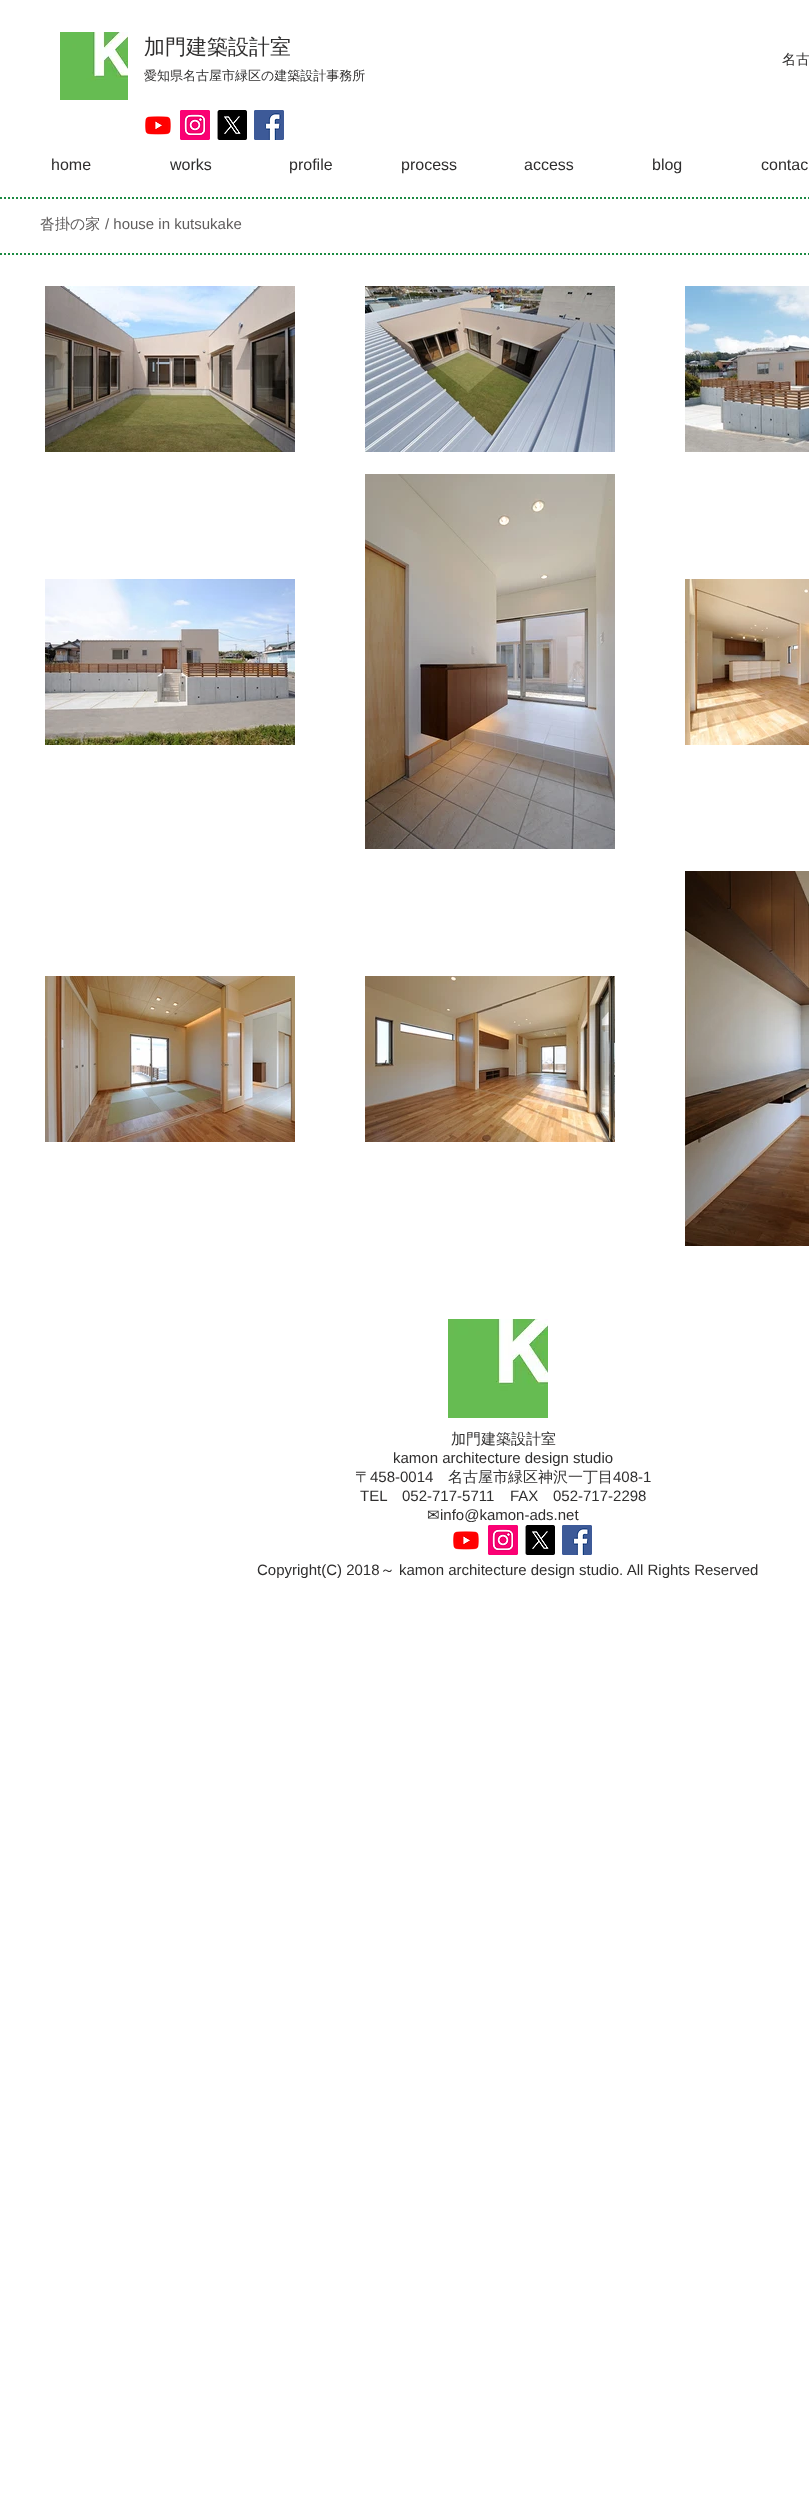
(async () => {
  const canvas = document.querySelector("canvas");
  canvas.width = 809;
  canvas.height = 2497;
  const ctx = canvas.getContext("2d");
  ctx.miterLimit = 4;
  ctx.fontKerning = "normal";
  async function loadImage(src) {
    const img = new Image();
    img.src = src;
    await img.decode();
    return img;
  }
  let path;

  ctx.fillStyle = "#ffffff";
  ctx.fillRect(0, 0, 809, 2497);
  ctx.drawImage(await loadImage("img/1.png"), 60, 32, 68, 68);
  ctx.drawImage(await loadImage("img/2.png"), 145, 116, 26, 19);
  ctx.drawImage(await loadImage("img/3.png"), 180, 110, 30, 30);
  ctx.drawImage(await loadImage("img/4.png"), 217, 110, 30, 30);
  ctx.drawImage(await loadImage("img/5.png"), 254, 110, 30, 30);
  path = new Path2D("M0 198H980");
  ctx.strokeStyle = "#1c8a43";
  ctx.lineWidth = 2;
  ctx.setLineDash([2, 2]);
  ctx.stroke(path);
  path = new Path2D("M0 254H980");
  ctx.stroke(path);
  ctx.drawImage(await loadImage("img/6.png"), 45, 286, 250, 166);
  ctx.drawImage(await loadImage("img/7.png"), 365, 286, 250, 166);
  ctx.drawImage(await loadImage("img/8.png"), 685, 286, 124, 166);
  ctx.drawImage(await loadImage("img/9.png"), 45, 579, 250, 166);
  ctx.drawImage(await loadImage("img/10.png"), 365, 474, 250, 375);
  ctx.drawImage(await loadImage("img/11.png"), 685, 579, 124, 166);
  ctx.drawImage(await loadImage("img/12.png"), 45, 976, 250, 166);
  ctx.drawImage(await loadImage("img/13.png"), 365, 976, 250, 166);
  ctx.drawImage(await loadImage("img/14.png"), 685, 871, 124, 375);
  ctx.drawImage(await loadImage("img/15.png"), 448, 1319, 100, 99);
  ctx.drawImage(await loadImage("img/2.png"), 453, 1531, 26, 19);
  ctx.drawImage(await loadImage("img/3.png"), 488, 1525, 30, 30);
  ctx.drawImage(await loadImage("img/4.png"), 525, 1525, 30, 30);
  ctx.drawImage(await loadImage("img/5.png"), 562, 1525, 30, 30);
  ctx.font = "500 21px WenQuanYi Zen Hei";
  ctx.fillStyle = "#2f2e2e";
  ctx.fillText("加門建築設計室", 144, 54);
  ctx.font = "500 14px WenQuanYi Zen Hei";
  ctx.fillText("名古", 782, 64);
  ctx.font = "500 13px WenQuanYi Zen Hei";
  ctx.fillText("愛知県名古屋市緑区の建築設計事務所", 144, 80);
  ctx.font = "16px Liberation Sans";
  for (const [text, x, y] of [
    ["home", 51, 170],
    ["works", 170, 170],
    ["profile", 289, 170],
    ["process", 401, 170],
    ["access", 524, 170],
    ["blog", 652, 170],
    ["contac", 761, 170],
  ]) {
    ctx.fillText(text, x, y);
  }
  ctx.font = "500 15px WenQuanYi Zen Hei";
  ctx.fillStyle = "#605e5e";
  ctx.fillText("沓掛の家", 40, 229);
  ctx.font = "15px Liberation Sans";
  ctx.fillText("/ house in kutsukake", 105, 229);
  ctx.font = "500 15px WenQuanYi Zen Hei";
  ctx.fillStyle = "#2f2e2e";
  ctx.fillText("加門建築設計室", 451, 1444);
  ctx.font = "15px Liberation Sans";
  ctx.fillText("kamon architecture design studio", 393, 1463);
  ctx.font = "500 15px WenQuanYi Zen Hei";
  ctx.fillText("〒", 355, 1482);
  ctx.font = "15px Liberation Sans";
  ctx.fillText("458-0014", 370, 1482);
  ctx.font = "500 15px WenQuanYi Zen Hei";
  ctx.fillText("名古屋市緑区神沢一丁目", 448, 1482);
  ctx.font = "15px Liberation Sans";
  for (const [text, x, y] of [
    ["408-1", 613, 1482],
    ["TEL", 360, 1501],
    ["052-717-5711", 402, 1501],
    ["FAX", 510, 1501],
    ["052-717-2298", 553, 1501],
  ]) {
    ctx.fillText(text, x, y);
  }
  ctx.font = "15px DejaVu Sans";
  ctx.fillText("✉", 427, 1520);
  ctx.font = "15px Liberation Sans";
  ctx.fillText("info@kamon-ads.net", 440, 1520);
  ctx.fillText("Copyright(C) 2018", 257, 1575);
  ctx.font = "500 15px WenQuanYi Zen Hei";
  ctx.fillText("～", 380, 1575);
  ctx.font = "15px Liberation Sans";
  ctx.fillText("kamon architecture design studio. All Rights Reserved", 399, 1575);
})();
